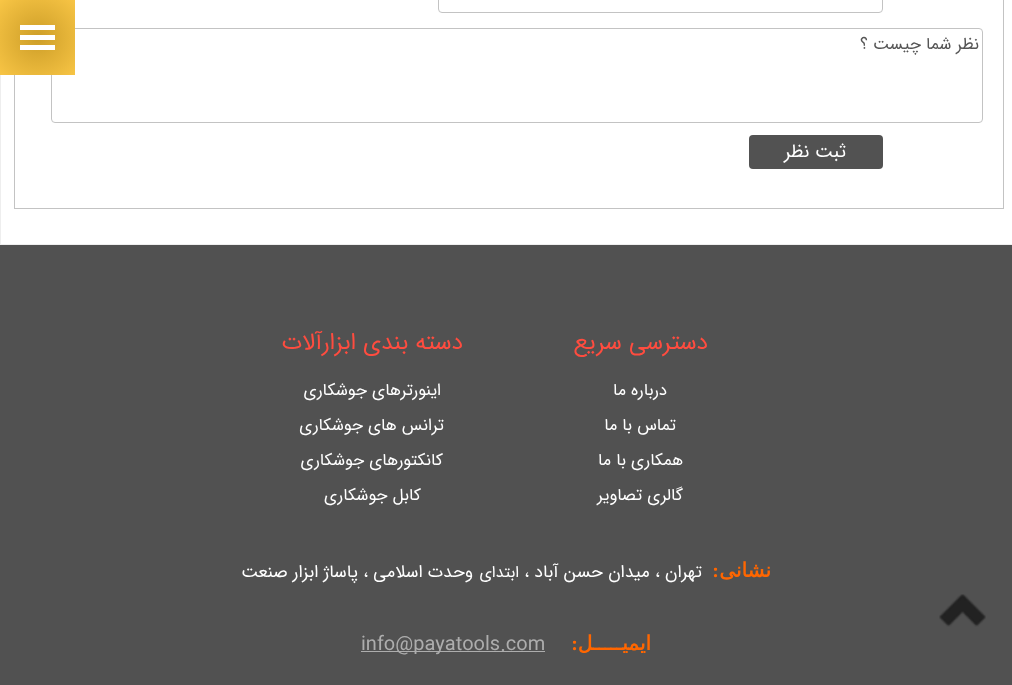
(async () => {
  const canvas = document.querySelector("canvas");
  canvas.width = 1012;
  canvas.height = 685;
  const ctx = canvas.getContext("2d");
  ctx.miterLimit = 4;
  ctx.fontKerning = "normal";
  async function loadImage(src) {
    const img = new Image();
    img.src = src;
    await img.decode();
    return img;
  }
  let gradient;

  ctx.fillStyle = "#ffffff";
  ctx.fillRect(0, 0, 1012, 685);
  ctx.strokeStyle = "#eeeeee";
  ctx.strokeRect(0.5, -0.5, 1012, 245);
  ctx.strokeStyle = "#c3c3c3";
  ctx.strokeRect(14.5, -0.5, 989, 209);
  ctx.beginPath();
  ctx.roundRect(438.5, -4.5, 444, 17, 3.5);
  ctx.stroke();
  ctx.beginPath();
  ctx.roundRect(51.5, 28.5, 931, 94, 3.5);
  ctx.stroke();
  ctx.fillStyle = "#525252";
  ctx.beginPath();
  ctx.roundRect(749, 135, 134, 34, 4);
  ctx.fill();
  ctx.fillStyle = "#515151";
  ctx.fillRect(0, 245, 1012, 440);
  ctx.fillStyle = "#adadad";
  ctx.fillRect(361, 651, 184, 1);
  gradient = ctx.createRadialGradient(38, 38, 0, 38, 38, 53);
  gradient.addColorStop(0, "#cd9e28");
  gradient.addColorStop(1, "#f8c545");
  ctx.fillStyle = gradient;
  ctx.fillRect(0, 0, 75, 75);
  for (const [x, y, w, h, color] of [
    [20, 25, 35, 5, "#ffffff"],
    [20, 35, 35, 5, "#ffffff"],
    [20, 45, 35, 5, "#ffffff"],
  ]) {
    ctx.fillStyle = color;
    ctx.fillRect(x, y, w, h);
  }
  ctx.drawImage(await loadImage("img/1.png"), 939, 594, 47, 33);
  ctx.direction = "rtl";
  ctx.font = "16.75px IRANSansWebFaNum";
  ctx.fillStyle = "#555555";
  ctx.fillText("نظر شما چیست ؟", 979, 49);
  ctx.font = "18.5px IRANSansWebFaNum";
  ctx.fillStyle = "#ffffff";
  ctx.fillText("ثبت نظر", 846, 157);
  ctx.font = "23.25px IRANSansWebFaNum";
  ctx.fillStyle = "#ff4c3f";
  ctx.fillText("دسترسی سریع", 708, 349);
  ctx.font = "16.75px IRANSansWebFaNum";
  ctx.fillStyle = "#ffffff";
  for (const [text, x, y] of [
    ["درباره ما", 667, 395],
    ["تماس با ما", 676, 430],
    ["همکاری با ما", 683, 465],
    ["گالری تصاویر", 683, 500],
  ]) {
    ctx.fillText(text, x, y);
  }
  ctx.font = "23.25px IRANSansWebFaNum";
  ctx.fillStyle = "#ff4c3f";
  ctx.fillText("دسته بندی ابزارآلات", 463, 349);
  ctx.font = "16.75px IRANSansWebFaNum";
  ctx.fillStyle = "#ffffff";
  for (const [text, x, y] of [
    ["اینورترهای جوشکاری", 441, 395],
    ["ترانس های جوشکاری", 444, 430],
    ["کانکتورهای جوشکاری", 443, 465],
    ["کابل جوشکاری", 421, 500],
  ]) {
    ctx.fillText(text, x, y);
  }
  ctx.font = "bold 20px DejaVu Sans";
  ctx.fillStyle = "#ff6600";
  ctx.fillText("نشانی", 771, 577);
  ctx.font = "bold 20px Liberation Serif";
  ctx.fillText(":", 719, 577);
  ctx.font = "17.5px IRANSansWebFaNum";
  ctx.fillStyle = "#ffffff";
  ctx.fillText("تهران ، میدان حسن آباد ،", 702, 577);
  ctx.font = "16px IRANSansWebFaNum";
  ctx.fillText("ابتدای", 519, 577);
  ctx.font = "17.5px IRANSansWebFaNum";
  ctx.fillText("وحدت اسلامی ، پاساژ ابزار صنعت", 473, 577);
  ctx.font = "bold 20px DejaVu Sans";
  ctx.fillStyle = "#ff6600";
  ctx.fillText("ایمیـــــل", 651, 650);
  ctx.font = "bold 20px Liberation Serif";
  ctx.fillText(":", 578, 650);
  ctx.direction = "ltr";
  ctx.font = "20px IRANSansWebFaNum";
  ctx.fillStyle = "#adadad";
  ctx.fillText("info@payatools.com", 361, 650);
})();
